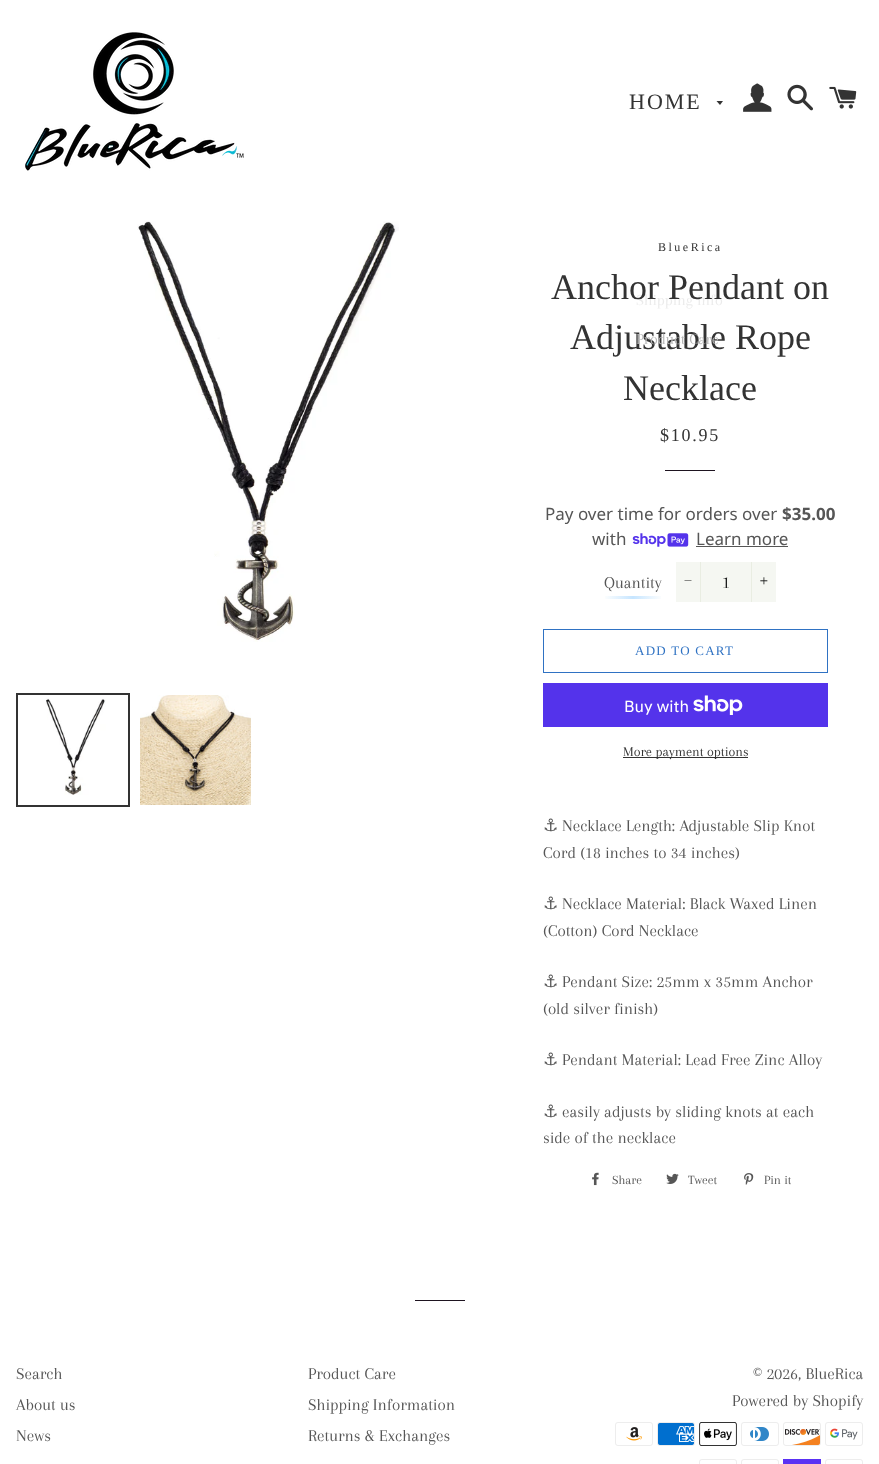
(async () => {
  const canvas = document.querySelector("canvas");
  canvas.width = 879;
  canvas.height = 1464;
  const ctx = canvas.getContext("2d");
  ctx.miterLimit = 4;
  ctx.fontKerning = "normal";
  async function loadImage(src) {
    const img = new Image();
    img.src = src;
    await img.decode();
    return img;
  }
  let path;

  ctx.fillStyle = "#ffffff";
  ctx.fillRect(0, 0, 879, 1464);
  ctx.drawImage(await loadImage("img/1.png"), 25, 32, 219, 139);
  ctx.fillStyle = "#333333";
  path = new Path2D("M716.5 101L720 105L723 101Z");
  ctx.fill(path);
  ctx.drawImage(await loadImage("img/2.png"), 743, 83, 29, 29);
  ctx.drawImage(await loadImage("img/3.png"), 787, 84, 26, 27);
  ctx.drawImage(await loadImage("img/4.png"), 829, 86, 28, 23);
  ctx.drawImage(await loadImage("img/5.png"), 137, 221, 262, 421);
  ctx.strokeStyle = "#333333";
  ctx.lineWidth = 2;
  ctx.strokeRect(17, 694, 112, 112);
  ctx.drawImage(await loadImage("img/6.png"), 45, 698, 61, 97);
  ctx.drawImage(await loadImage("img/7.png"), 140, 695, 111, 110);
  ctx.fillStyle = "#1e1420";
  ctx.fillRect(665, 470, 50, 1);
  ctx.drawImage(await loadImage("img/8.png"), 632, 533, 57, 14);
  ctx.fillStyle = "#565656";
  ctx.fillRect(696, 546, 92, 1);
  ctx.drawImage(await loadImage("img/9.png"), 605, 596, 56, 3);
  ctx.fillStyle = "#f5f7f2";
  ctx.fillRect(676, 562, 100, 40);
  ctx.fillStyle = "#e9ede2";
  ctx.fillRect(700, 562, 1, 40);
  ctx.fillStyle = "#1c1d1d";
  path = new Path2D("M684.5 580.5H691.5V581H684.5Z");
  ctx.fill(path);
  ctx.fillStyle = "#e9ede2";
  ctx.fillRect(751, 562, 1, 40);
  ctx.drawImage(await loadImage("img/10.png"), 760, 577, 8, 8);
  ctx.strokeStyle = "#2f72c3";
  ctx.lineWidth = 1;
  ctx.strokeRect(543.5, 629.5, 284, 43);
  ctx.fillStyle = "#5433eb";
  ctx.fillRect(543, 683, 285, 44);
  ctx.drawImage(await loadImage("img/11.png"), 693, 695, 50, 20);
  ctx.fillStyle = "#333333";
  ctx.fillRect(623, 757, 125, 1);
  ctx.drawImage(await loadImage("img/12.png"), 592, 1172, 7, 14);
  ctx.drawImage(await loadImage("img/13.png"), 666, 1173, 13, 11);
  ctx.drawImage(await loadImage("img/14.png"), 744, 1173, 10, 12);
  ctx.fillStyle = "#1e1420";
  ctx.fillRect(415, 1300, 50, 1);
  ctx.drawImage(await loadImage("img/15.png"), 615, 1422, 38, 24);
  ctx.drawImage(await loadImage("img/16.png"), 657, 1422, 38, 24);
  ctx.drawImage(await loadImage("img/17.png"), 699, 1422, 38, 24);
  ctx.drawImage(await loadImage("img/18.png"), 741, 1422, 38, 24);
  ctx.drawImage(await loadImage("img/19.png"), 783, 1422, 38, 24);
  ctx.drawImage(await loadImage("img/20.png"), 825, 1422, 38, 24);
  ctx.drawImage(await loadImage("img/21.png"), 699, 1459, 38, 5);
  ctx.drawImage(await loadImage("img/21.png"), 741, 1459, 38, 5);
  ctx.fillStyle = "#5a31f4";
  ctx.fillRect(783, 1459, 38, 5);
  ctx.drawImage(await loadImage("img/21.png"), 825, 1459, 38, 5);
  ctx.letterSpacing = "2px";
  ctx.font = "22px Liberation Serif";
  ctx.fillStyle = "#333333";
  ctx.fillText("HOME", 629, 109);
  ctx.letterSpacing = "0px";
  ctx.font = "16px Arapey";
  ctx.fillStyle = "#ebebeb";
  ctx.fillText("Shipping info", 636, 305);
  ctx.letterSpacing = "2.5px";
  ctx.font = "12px Liberation Serif";
  ctx.fillStyle = "#333333";
  ctx.fillText("BlueRica", 658, 251);
  ctx.letterSpacing = "0px";
  ctx.font = "36px Liberation Serif";
  ctx.fillText("Anchor Pendant on", 551, 299);
  ctx.fillText("Adjustable Rope", 570, 349);
  ctx.font = "16px Arapey";
  ctx.fillStyle = "#b5b5b5";
  ctx.fillText("Product Care", 636, 344);
  ctx.font = "36px Liberation Serif";
  ctx.fillStyle = "#333333";
  ctx.fillText("Necklace", 623, 400);
  ctx.letterSpacing = "1.75px";
  ctx.font = "18px Liberation Serif";
  ctx.fillText("$10.95", 660, 441);
  ctx.letterSpacing = "0px";
  ctx.font = "17px Noto Sans";
  ctx.fillStyle = "#565656";
  ctx.fillText("Pay over time for orders over", 545, 520);
  ctx.font = "bold 17px Noto Sans";
  ctx.fillText("$35.00", 782, 520);
  ctx.font = "17px Noto Sans";
  ctx.fillText("with", 592, 545);
  ctx.fillText("Learn more", 696, 545);
  ctx.font = "17px Arapey";
  ctx.fillText("Quantity", 604, 588);
  ctx.font = "18px Arapey";
  ctx.fillStyle = "#1c1d1d";
  ctx.fillText("1", 722, 588);
  ctx.letterSpacing = "1.25px";
  ctx.font = "13px Liberation Serif";
  ctx.fillStyle = "#2f72c3";
  ctx.fillText("ADD TO CART", 635, 655);
  ctx.letterSpacing = "0px";
  ctx.font = "16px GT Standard";
  ctx.fillStyle = "#ffffff";
  ctx.fillText("Buy with", 624, 712);
  ctx.font = "14px Arapey";
  ctx.fillStyle = "#333333";
  ctx.fillText("More payment options", 623, 756);
  ctx.font = "17px DejaVu Sans";
  ctx.fillStyle = "#565656";
  ctx.fillText("⚓︎", 543, 831);
  ctx.font = "17px Arapey";
  ctx.fillText("Necklace Length: Adjustable Slip Knot", 562, 831);
  ctx.fillText("Cord (18 inches to 34 inches)", 543, 858);
  ctx.font = "17px DejaVu Sans";
  ctx.fillText("⚓︎", 543, 909);
  ctx.font = "17px Arapey";
  ctx.fillText("Necklace Material: Black Waxed Linen", 562, 909);
  ctx.fillText("(Cotton) Cord Necklace", 543, 936);
  ctx.font = "17px DejaVu Sans";
  ctx.fillText("⚓︎", 543, 987);
  ctx.font = "17px Arapey";
  ctx.fillText("Pendant Size: 25mm x 35mm Anchor", 562, 987);
  ctx.fillText("(old silver finish)", 543, 1014);
  ctx.font = "17px DejaVu Sans";
  ctx.fillText("⚓︎", 543, 1065);
  ctx.font = "17px Arapey";
  ctx.fillText("Pendant Material: Lead Free Zinc Alloy", 562, 1065);
  ctx.font = "17px DejaVu Sans";
  ctx.fillText("⚓︎", 543, 1117);
  ctx.font = "17px Arapey";
  ctx.fillText("easily adjusts by sliding knots at each", 562, 1117);
  ctx.fillText("side of the necklace", 543, 1143);
  ctx.font = "13px Arapey";
  for (const [text, x, y] of [
    ["Share", 612, 1184],
    ["Tweet", 688, 1184],
    ["Pin it", 764, 1184],
  ]) {
    ctx.fillText(text, x, y);
  }
  ctx.font = "17px Arapey";
  for (const [text, x, y] of [
    ["Search", 16, 1379],
    ["About us", 16, 1410],
    ["News", 16, 1441],
    ["Product Care", 308, 1379],
    ["Shipping Information", 308, 1410],
    ["Returns & Exchanges", 308, 1441],
    ["© 2026, BlueRica", 753, 1379],
    ["Powered by Shopify", 732, 1406],
  ]) {
    ctx.fillText(text, x, y);
  }
})();
